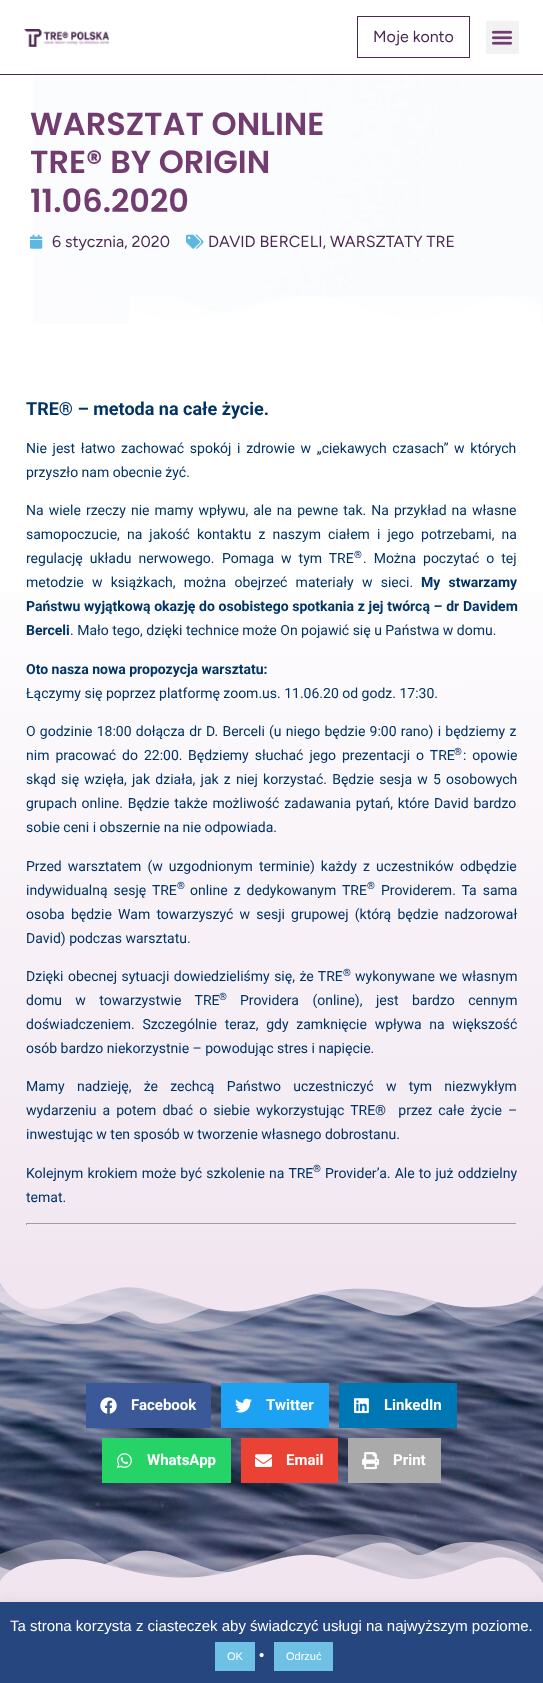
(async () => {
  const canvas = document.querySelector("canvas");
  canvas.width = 543;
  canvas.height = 1683;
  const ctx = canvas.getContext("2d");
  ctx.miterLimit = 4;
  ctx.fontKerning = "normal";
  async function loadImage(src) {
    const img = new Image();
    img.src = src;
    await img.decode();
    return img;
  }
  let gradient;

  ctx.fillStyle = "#ffffff";
  ctx.fillRect(0, 0, 543, 1683);
  ctx.fillStyle = "#4a2950";
  ctx.fillRect(0, 74, 543, 1);
  ctx.drawImage(await loadImage("img/1.png"), 24, 29, 85, 18);
  ctx.strokeStyle = "#4a2950";
  ctx.strokeRect(357.5, 16.5, 112, 41);
  ctx.fillStyle = "#f2f2f2";
  ctx.fillRect(486, 21, 33, 33);
  ctx.drawImage(await loadImage("img/2.png"), 491, 30, 22, 15);
  ctx.drawImage(await loadImage("img/3.png"), 33, 75, 510, 249);
  ctx.drawImage(await loadImage("img/4.png"), 30, 234, 13, 15);
  ctx.drawImage(await loadImage("img/5.png"), 186, 234, 18, 15);
  ctx.drawImage(await loadImage("img/6.png"), 129, 296, 413, 28);
  gradient = ctx.createLinearGradient(271, 324, 272, 1283);
  gradient.addColorStop(0.2, "#ffffff");
  gradient.addColorStop(1, "#f1e6f0");
  ctx.fillStyle = gradient;
  ctx.fillRect(0, 592, 543, 691);
  for (const [x, y, w, h, color] of [
    [26, 1223, 491, 1, "#9f9f9f"],
    [516, 1223, 1, 2, "#eeeeee"],
    [26, 1224, 491, 1, "#eeeeee"],
    [26, 1223, 1, 2, "#9f9f9f"],
  ]) {
    ctx.fillStyle = color;
    ctx.fillRect(x, y, w, h);
  }
  ctx.drawImage(await loadImage("img/7.png"), 0, 1283, 543, 300);
  ctx.drawImage(await loadImage("img/8.png"), 0, 1283, 543, 49);
  ctx.fillStyle = "#3b5998";
  ctx.fillRect(86, 1383, 125, 45);
  ctx.drawImage(await loadImage("img/9.png"), 100, 1397, 17, 17);
  ctx.fillStyle = "#1da1f2";
  ctx.fillRect(221, 1383, 108, 45);
  ctx.drawImage(await loadImage("img/10.png"), 235, 1398, 17, 15);
  ctx.fillStyle = "#0077b5";
  ctx.fillRect(339, 1383, 118, 45);
  ctx.drawImage(await loadImage("img/11.png"), 354, 1398, 15, 16);
  ctx.fillStyle = "#25d366";
  ctx.fillRect(102, 1438, 129, 45);
  ctx.drawImage(await loadImage("img/12.png"), 117, 1453, 15, 15);
  ctx.fillStyle = "#ea4335";
  ctx.fillRect(241, 1438, 97, 45);
  ctx.drawImage(await loadImage("img/13.png"), 255, 1454, 17, 13);
  ctx.fillStyle = "#aaaaaa";
  ctx.fillRect(348, 1438, 93, 45);
  ctx.drawImage(await loadImage("img/14.png"), 362, 1452, 17, 18);
  ctx.drawImage(await loadImage("img/15.png"), 0, 1534, 543, 49);
  ctx.fillStyle = "#f1e6f0";
  ctx.fillRect(0, 1583, 543, 19);
  ctx.fillStyle = "rgba(172, 171, 171, 0.3)";
  ctx.filter = "blur(5px)";
  ctx.beginPath();
  ctx.rect(0, 1601, 543, 81);
  ctx.fill();
  ctx.filter = "none";
  for (const [x, y, w, h, color] of [
    [0, 1602, 543, 81, "#25467f"],
    [215, 1642, 40, 29, "#6ec1e4"],
    [274, 1642, 59, 29, "#6ec1e4"],
  ]) {
    ctx.fillStyle = color;
    ctx.fillRect(x, y, w, h);
  }
  ctx.font = "16px Figtree";
  ctx.fillStyle = "#4a2950";
  ctx.fillText("Moje konto", 373, 42);
  ctx.font = "600 32px Poppins";
  ctx.fillStyle = "#723c70";
  for (const [text, x, y] of [
    ["WARSZTAT ONLINE", 30, 135],
    ["TRE® BY ORIGIN", 30, 173],
    ["11.06.2020", 30, 212],
  ]) {
    ctx.fillText(text, x, y);
  }
  ctx.font = "16px Figtree";
  ctx.fillStyle = "#4a2950";
  ctx.fillText("6 stycznia, 2020", 52, 247);
  ctx.fillText("DAVID BERCELI, WARSZTATY TRE", 208, 247);
  ctx.font = "bold 18px Roboto";
  ctx.fillStyle = "#003366";
  ctx.fillText("TRE® – metoda na całe życie.", 26, 415);
  ctx.wordSpacing = "2.25px";
  ctx.font = "14px Roboto";
  ctx.fillText("Nie jest łatwo zachować spokój i zdrowie w „ciekawych czasach” w których", 26, 453);
  ctx.wordSpacing = "0px";
  ctx.fillText("przyszło nam obecnie żyć.", 26, 477);
  ctx.wordSpacing = "1.6px";
  ctx.fillText("Na wiele rzeczy nie mamy wpływu, ale na pewne tak. Na przykład na własne", 26, 515);
  ctx.wordSpacing = "3.6px";
  ctx.fillText("samopoczucie, na jakość kontaktu z naszym ciałem i jego potrzebami, na", 26, 539);
  ctx.wordSpacing = "3.5px";
  ctx.fillText("regulację układu nerwowego.", 26, 563);
  ctx.fillText("Pomaga w tym TRE", 222, 563);
  ctx.wordSpacing = "0px";
  ctx.font = "10px Roboto";
  ctx.fillText("®", 354, 558);
  ctx.wordSpacing = "3.5px";
  ctx.font = "14px Roboto";
  ctx.fillText(". Można poczytać o tej", 363, 563);
  ctx.wordSpacing = "4.75px";
  ctx.fillText("metodzie w książkach, można obejrzeć materiały w sieci.", 26, 587);
  ctx.font = "bold 14px Roboto";
  ctx.fillText("My stwarzamy", 421, 587);
  ctx.wordSpacing = "0.25px";
  ctx.fillText("Państwu wyjątkową okazję do osobistego spotkania z jej twórcą – dr Davidem", 26, 611);
  ctx.wordSpacing = "0px";
  ctx.fillText("Berceli", 26, 635);
  ctx.font = "14px Roboto";
  ctx.fillText(". Mało tego, dzięki technice może On pojawić się u Państwa w domu.", 70, 635);
  ctx.font = "bold 14px Roboto";
  ctx.fillText("Oto nasza nowa propozycja warsztatu:", 26, 674);
  ctx.font = "14px Roboto";
  ctx.fillText("Łączymy się poprzez platformę zoom.us. 11.06.20 od godz. 17:30.", 26, 698);
  ctx.wordSpacing = "0.75px";
  ctx.fillText("O godzinie 18:00 dołącza dr D. Berceli (u niego będzie 9:00 rano) i będziemy z", 26, 736);
  ctx.wordSpacing = "2.5px";
  ctx.fillText("nim pracować do 22:00.", 26, 760);
  ctx.fillText("Będziemy słuchać jego prezentacji o TRE", 188, 760);
  ctx.wordSpacing = "0px";
  ctx.font = "10px Roboto";
  ctx.fillText("®", 454, 755);
  ctx.wordSpacing = "2.5px";
  ctx.font = "14px Roboto";
  ctx.fillText(": opowie", 463, 760);
  ctx.wordSpacing = "1.75px";
  ctx.fillText("skąd się wzięła, jak działa, jak z niej korzystać. Będzie sesja w 5 osobowych", 26, 784);
  ctx.wordSpacing = "1.25px";
  ctx.fillText("grupach online. Będzie także możliwość zadawania pytań, które David bardzo", 26, 808);
  ctx.wordSpacing = "0px";
  ctx.fillText("sobie ceni i obszernie na nie odpowiada.", 26, 832);
  ctx.wordSpacing = "2.6px";
  ctx.fillText("Przed warsztatem (w uzgodnionym terminie) każdy z uczestników odbędzie", 26, 871);
  ctx.wordSpacing = "2.5px";
  ctx.fillText("indywidualną sesję TRE", 26, 895);
  ctx.wordSpacing = "0px";
  ctx.font = "10px Roboto";
  ctx.fillText("®", 177, 889);
  ctx.wordSpacing = "2.5px";
  ctx.font = "14px Roboto";
  ctx.fillText("online z dedykowanym TRE", 190, 895);
  ctx.wordSpacing = "0px";
  ctx.font = "10px Roboto";
  ctx.fillText("®", 367, 889);
  ctx.wordSpacing = "2.5px";
  ctx.font = "14px Roboto";
  ctx.fillText("Providerem. Ta sama", 381, 895);
  ctx.wordSpacing = "2.75px";
  ctx.fillText("osoba będzie Wam towarzyszyć w sesji grupowej (którą będzie nadzorował", 26, 919);
  ctx.wordSpacing = "0px";
  ctx.fillText("David) podczas warsztatu.", 26, 943);
  ctx.wordSpacing = "1px";
  ctx.fillText("Dzięki obecnej sytuacji dowiedzieliśmy się, że TRE", 26, 981);
  ctx.wordSpacing = "0px";
  ctx.font = "10px Roboto";
  ctx.fillText("®", 343, 976);
  ctx.wordSpacing = "1px";
  ctx.font = "14px Roboto";
  ctx.fillText("wykonywane we własnym", 355, 981);
  ctx.wordSpacing = "10px";
  ctx.fillText("domu w towarzystwie TRE", 26, 1005);
  ctx.wordSpacing = "0px";
  ctx.font = "10px Roboto";
  ctx.fillText("®", 219, 1000);
  ctx.wordSpacing = "10px";
  ctx.font = "14px Roboto";
  ctx.fillText("Providera (online), jest bardzo cennym", 240, 1005);
  ctx.wordSpacing = "4.25px";
  ctx.fillText("doświadczeniem. Szczególnie teraz, gdy zamknięcie wpływa na większość", 26, 1029);
  ctx.wordSpacing = "0px";
  ctx.fillText("osób bardzo niekorzystnie – powodując stres i napięcie.", 26, 1053);
  ctx.wordSpacing = "8.75px";
  ctx.fillText("Mamy nadzieję, że zechcą Państwo uczestniczyć w tym niezwykłym", 26, 1091);
  ctx.wordSpacing = "2.6px";
  ctx.fillText("wydarzeniu a potem dbać o siebie wykorzystując TRE®  przez całe życie", 26, 1115);
  ctx.wordSpacing = "0px";
  ctx.fillText("–", 508, 1115);
  ctx.fillText("inwestując w ten sposób w tworzenie własnego dobrostanu.", 26, 1139);
  ctx.wordSpacing = "0.75px";
  ctx.fillText("Kolejnym krokiem może być szkolenie na TRE", 26, 1178);
  ctx.wordSpacing = "0px";
  ctx.font = "10px Roboto";
  ctx.fillText("®", 313, 1172);
  ctx.wordSpacing = "0.75px";
  ctx.font = "14px Roboto";
  ctx.fillText("Provider’a. Ale to już oddzielny", 325, 1178);
  ctx.wordSpacing = "0px";
  ctx.fillText("temat.", 26, 1202);
  ctx.font = "bold 15px Roboto";
  ctx.fillStyle = "#ffffff";
  for (const [text, x, y] of [
    ["Facebook", 131, 1410],
    ["Twitter", 266, 1410],
    ["LinkedIn", 384, 1410],
    ["WhatsApp", 147, 1465],
    ["Email", 286, 1465],
    ["Print", 393, 1465],
  ]) {
    ctx.fillText(text, x, y);
  }
  ctx.font = "15px Liberation Sans";
  ctx.fillText("Ta strona korzysta z ciasteczek aby świadczyć usługi na najwyższym poziome.", 10, 1631);
  ctx.font = "11px Liberation Sans";
  ctx.fillText("OK", 227, 1660);
  ctx.font = "15px Liberation Sans";
  ctx.fillText("•", 259, 1660);
  ctx.font = "11px Liberation Sans";
  ctx.fillText("Odrzuć", 286, 1660);
})();
